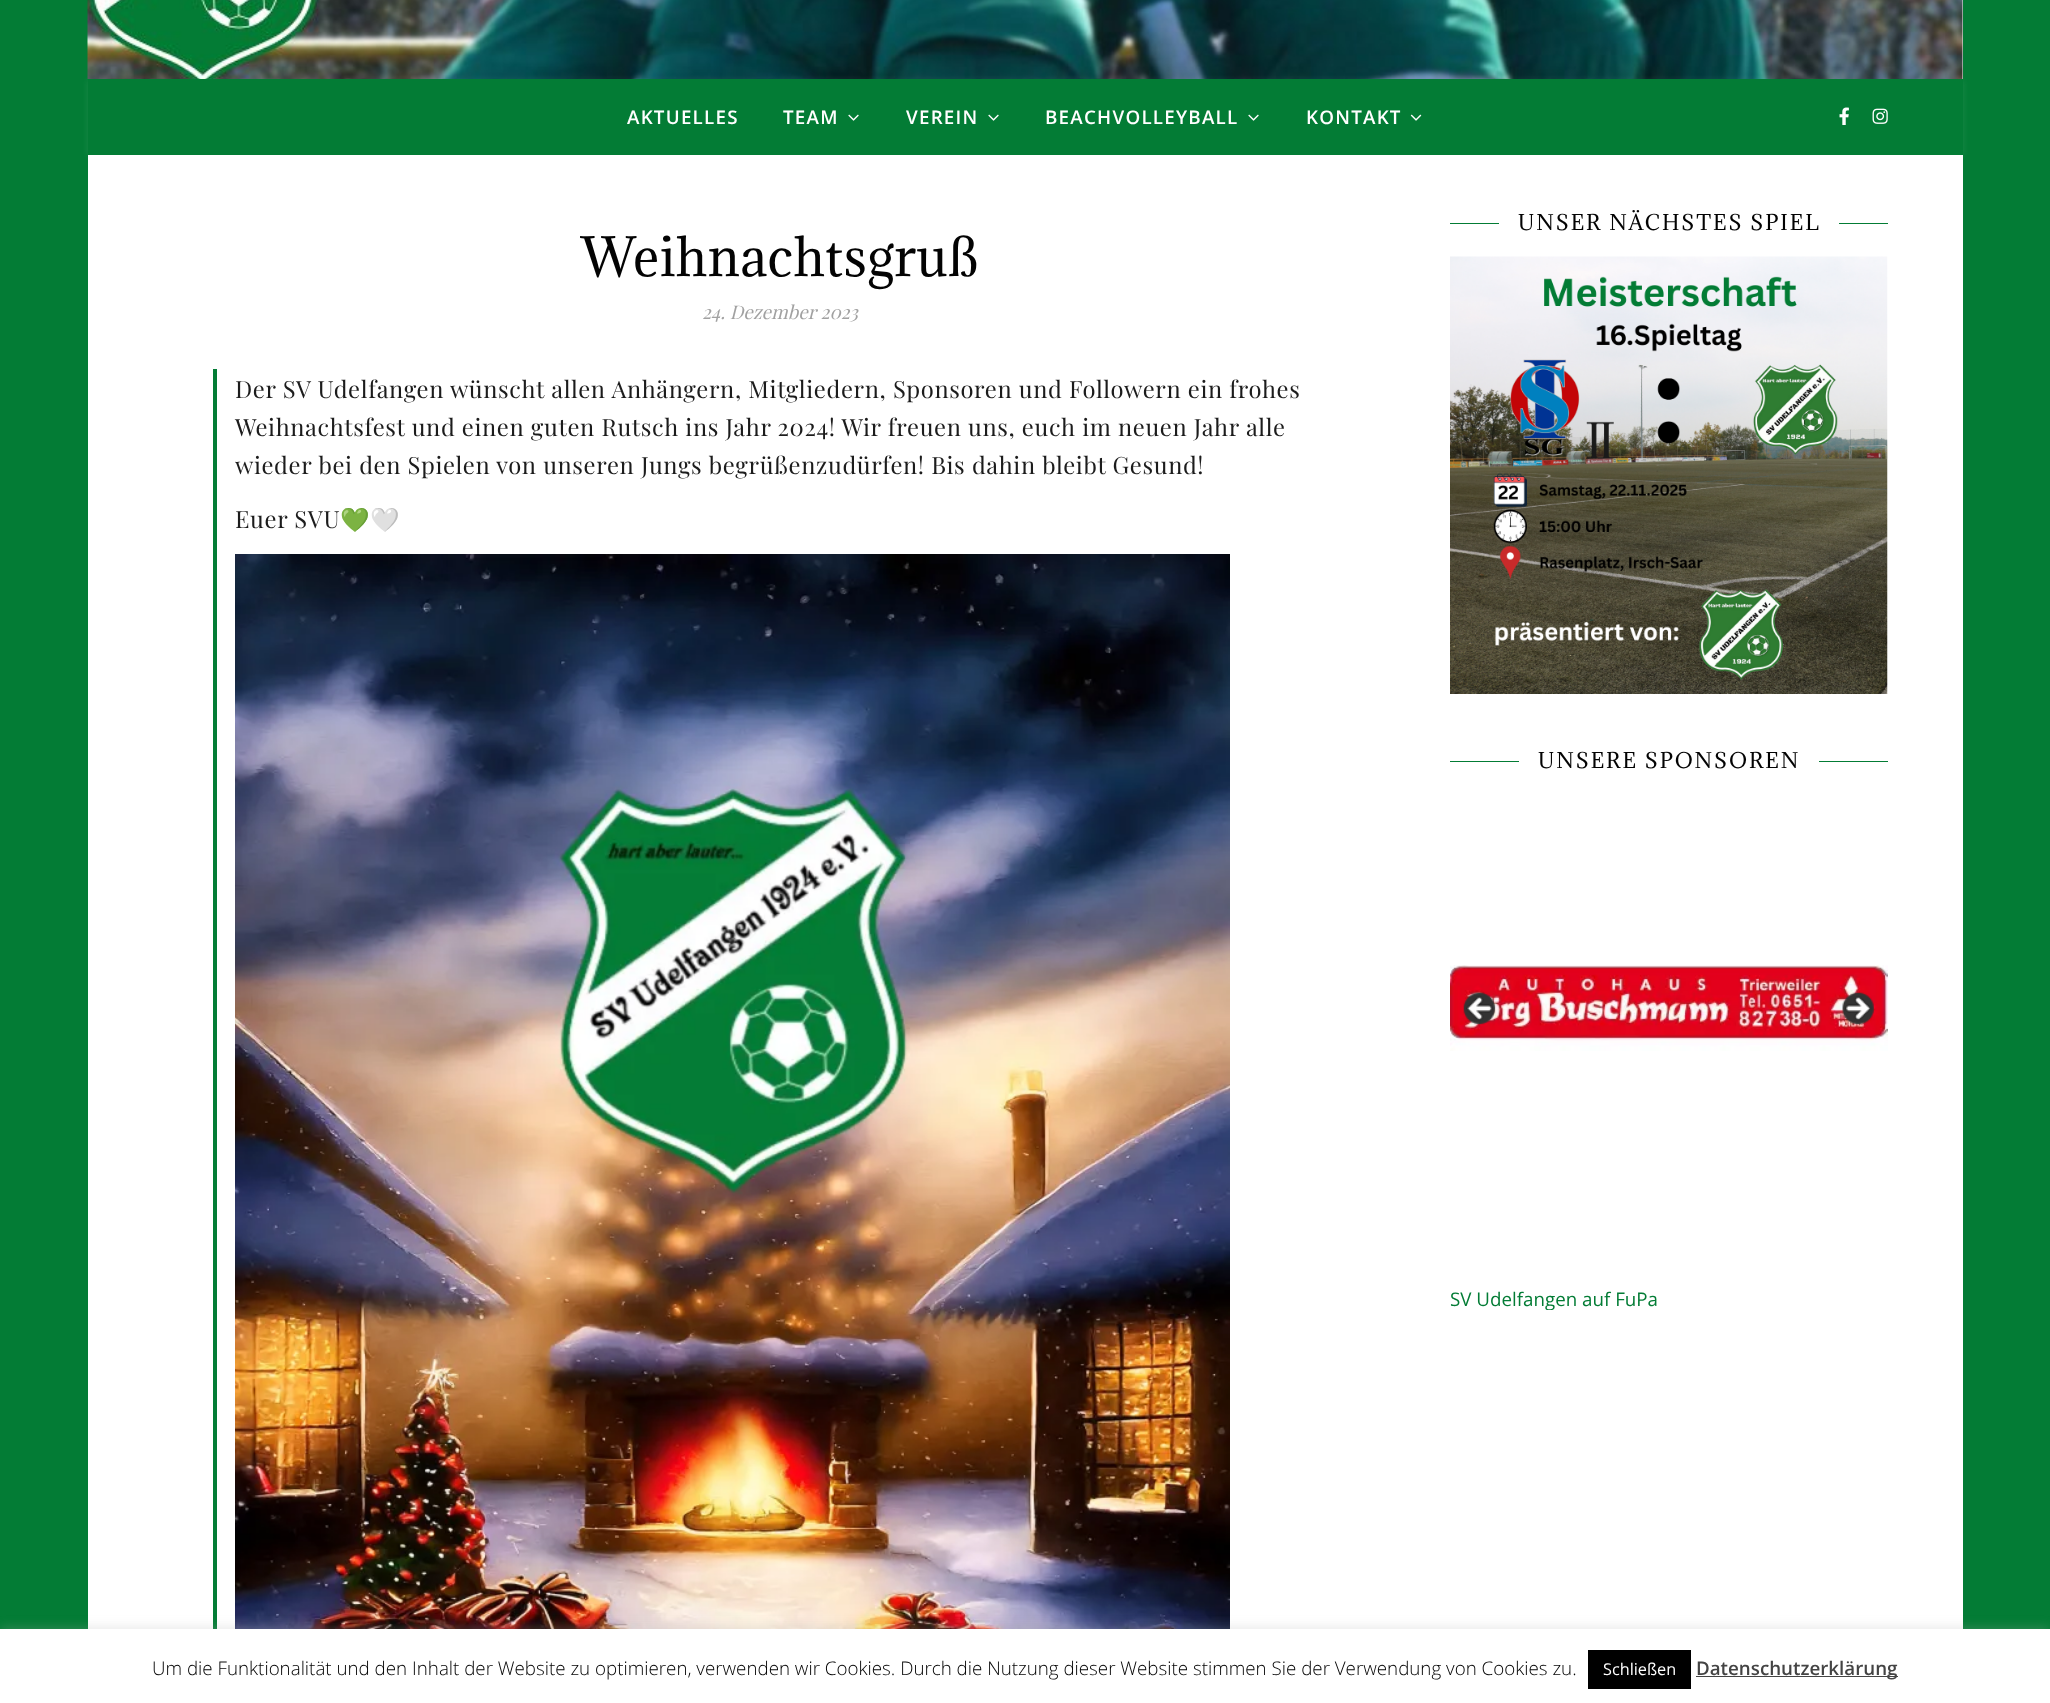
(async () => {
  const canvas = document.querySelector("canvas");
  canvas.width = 2050;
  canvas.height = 1703;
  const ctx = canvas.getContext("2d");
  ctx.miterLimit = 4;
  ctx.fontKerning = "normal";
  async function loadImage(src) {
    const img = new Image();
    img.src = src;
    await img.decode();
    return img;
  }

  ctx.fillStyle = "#037c35";
  ctx.fillRect(0, 0, 2050, 1703);
  ctx.fillStyle = "#ffffff";
  ctx.fillRect(1962, 0, 1, 79);
  ctx.drawImage(await loadImage("img/1.png"), 87, 0, 1876, 79);
  ctx.fillRect(88, 155, 1875, 1474);
  ctx.fillStyle = "rgba(255, 255, 255, 0.1)";
  ctx.filter = "blur(3px)";
  ctx.beginPath();
  ctx.rect(88, 80, 1875, 76);
  ctx.fill();
  ctx.filter = "none";
  ctx.fillStyle = "#037c35";
  ctx.fillRect(88, 79, 1875, 76);
  ctx.drawImage(await loadImage("img/2.png"), 848, 114, 11, 7);
  ctx.drawImage(await loadImage("img/2.png"), 988, 114, 11, 7);
  ctx.drawImage(await loadImage("img/2.png"), 1248, 114, 11, 7);
  ctx.drawImage(await loadImage("img/3.png"), 1410, 114, 12, 7);
  ctx.drawImage(await loadImage("img/4.png"), 1839, 107, 10, 18);
  ctx.drawImage(await loadImage("img/5.png"), 1872, 108, 16, 16);
  ctx.fillRect(213, 369, 4, 1260);
  ctx.drawImage(await loadImage("img/6.png"), 235, 554, 995, 1075);
  ctx.fillRect(1450, 223, 49, 1);
  ctx.fillRect(1839, 223, 49, 1);
  ctx.drawImage(await loadImage("img/7.png"), 1450, 256, 438, 438);
  ctx.fillRect(1450, 761, 69, 1);
  ctx.fillRect(1819, 761, 69, 1);
  ctx.drawImage(await loadImage("img/8.png"), 1450, 965, 438, 86);
  ctx.drawImage(await loadImage("img/9.png"), 1463, 992, 33, 33);
  ctx.drawImage(await loadImage("img/10.png"), 1842, 992, 32, 33);
  ctx.fillStyle = "rgba(172, 171, 171, 0.3)";
  ctx.filter = "blur(6px)";
  ctx.beginPath();
  ctx.rect(0, 1628, 2050, 75);
  ctx.fill();
  ctx.filter = "none";
  for (const [x, y, w, h, color] of [
    [0, 1629, 2050, 74, "#ffffff"],
    [1588, 1650, 103, 39, "#000000"],
    [1696, 1676, 202, 1, "#444444"],
  ]) {
    ctx.fillStyle = color;
    ctx.fillRect(x, y, w, h);
  }
  ctx.letterSpacing = "1.25px";
  ctx.font = "600 18.75px Open Sans";
  ctx.fillStyle = "#ffffff";
  for (const [text, x, y] of [
    ["AKTUELLES", 627, 124],
    ["TEAM", 783, 124],
    ["VEREIN", 906, 124],
    ["BEACHVOLLEYBALL", 1045, 124],
    ["KONTAKT", 1306, 124],
  ]) {
    ctx.fillText(text, x, y);
  }
  ctx.letterSpacing = "0.62px";
  ctx.font = "50px Adamina";
  ctx.fillStyle = "#030303";
  ctx.fillText("Weihnachtsgruß", 581, 276);
  ctx.letterSpacing = "0px";
  ctx.font = "italic 18.75px Playfair Display";
  ctx.fillStyle = "#a1a1a1";
  ctx.fillText("24. Dezember 2023", 702, 319);
  ctx.letterSpacing = "0.62px";
  ctx.font = "23.75px Playfair Display";
  ctx.fillStyle = "#1c1c1c";
  for (const [text, x, y] of [
    ["Der SV Udelfangen wünscht allen Anhängern, Mitgliedern, Sponsoren und Followern ein frohes", 235, 398],
    ["Weihnachtsfest und einen guten Rutsch ins Jahr 2024! Wir freuen uns, euch im neuen Jahr alle", 235, 436],
    ["wieder bei den Spielen von unseren Jungs begrüßenzudürfen! Bis dahin bleibt Gesund!", 235, 474],
    ["Euer SVU", 235, 528],
  ]) {
    ctx.fillText(text, x, y);
  }
  ctx.font = "23.75px Noto Color Emoji";
  ctx.fillText("💚🤍", 340, 528);
  ctx.letterSpacing = "1.9px";
  ctx.font = "20px Adamina";
  ctx.fillStyle = "#030303";
  ctx.fillText("UNSER NÄCHSTES SPIEL", 1518, 230);
  ctx.fillText("UNSERE SPONSOREN", 1538, 768);
  ctx.save();
  ctx.beginPath();
  ctx.rect(1450, 1289, 438, 21);
  ctx.clip();
  ctx.letterSpacing = "0px";
  ctx.font = "18.75px Open Sans";
  ctx.fillStyle = "#037c35";
  ctx.fillText("SV Udelfangen auf FuPa", 1450, 1306);
  ctx.restore();
  ctx.letterSpacing = "0px";
  ctx.font = "300 18.75px Open Sans";
  ctx.fillText("Um die Funktionalität und den Inhalt der Website zu optimieren, verwenden wir Cookies. Durch die Nutzung dieser Website stimmen Sie der Verwendung von Cookies zu.", 152, 1675);
  ctx.font = "16.25px Open Sans";
  ctx.fillStyle = "#ffffff";
  ctx.fillText("Schließen", 1603, 1675);
  ctx.font = "600 18.75px Open Sans";
  ctx.fillStyle = "#444444";
  ctx.fillText("Datenschutzerklärung", 1696, 1675);
})();
